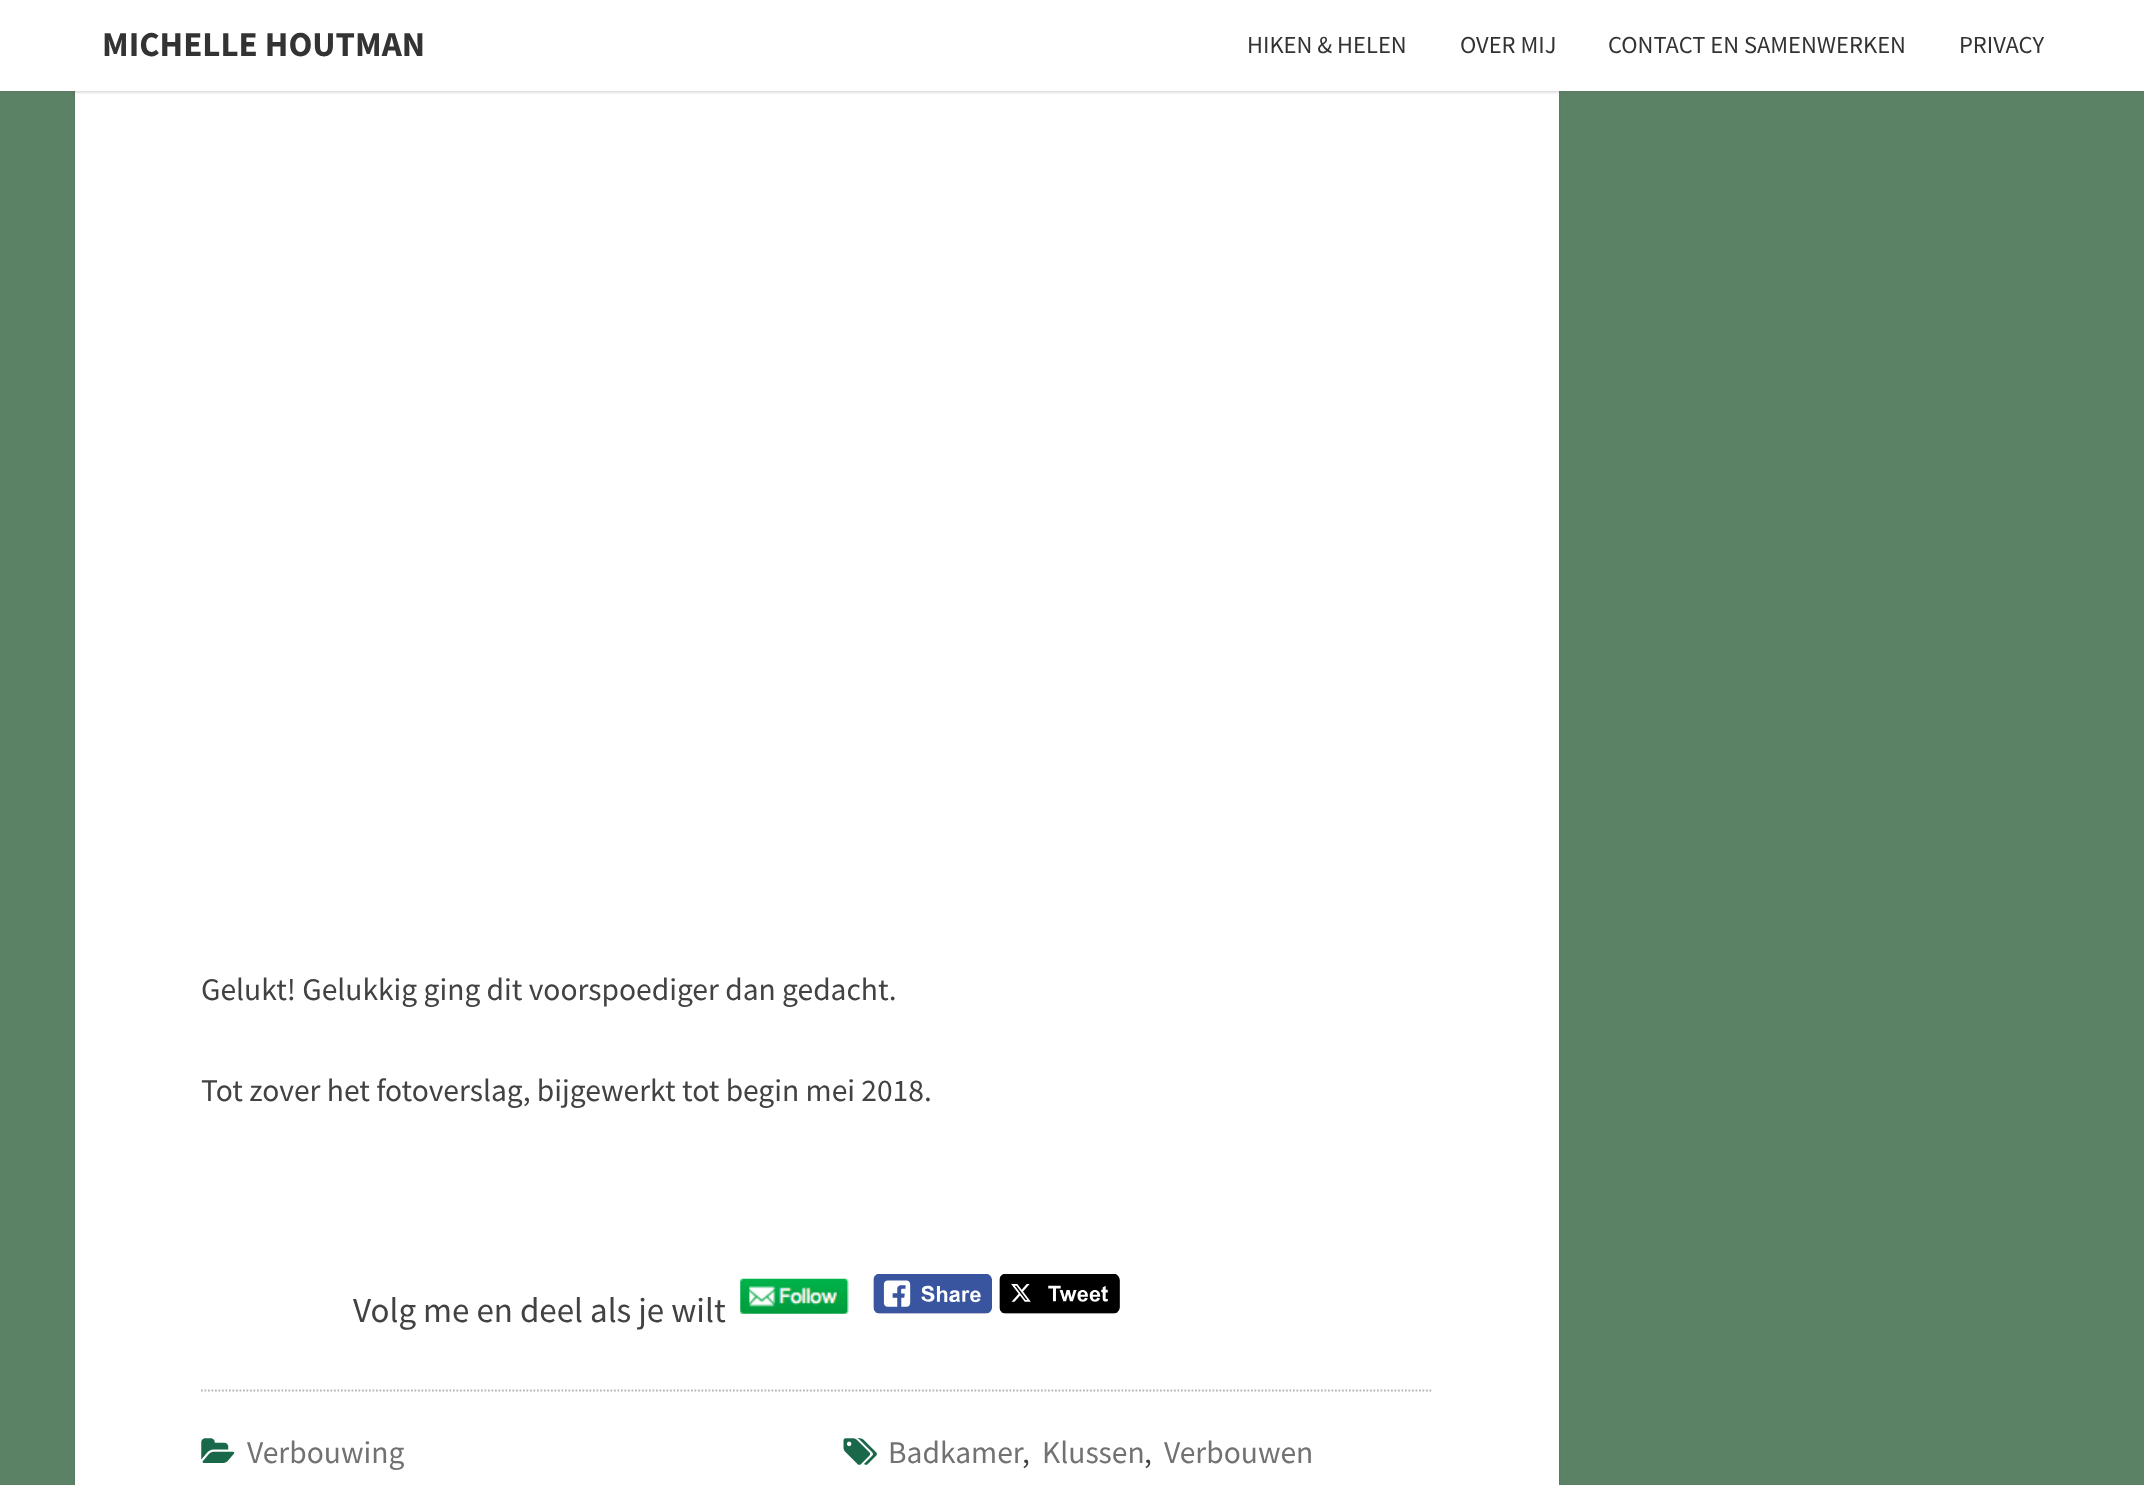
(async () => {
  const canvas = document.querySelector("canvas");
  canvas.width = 2144;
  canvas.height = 1485;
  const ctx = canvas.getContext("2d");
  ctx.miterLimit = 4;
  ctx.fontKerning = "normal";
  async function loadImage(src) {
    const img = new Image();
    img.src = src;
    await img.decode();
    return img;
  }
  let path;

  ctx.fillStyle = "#5c8265";
  ctx.fillRect(0, 0, 2144, 1485);
  ctx.fillStyle = "rgba(0, 0, 0, 0.15)";
  ctx.filter = "blur(1px)";
  ctx.beginPath();
  ctx.rect(75, -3, 1484, 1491);
  ctx.fill();
  ctx.filter = "none";
  ctx.fillStyle = "#ffffff";
  ctx.fillRect(75, 91, 1484, 1394);
  ctx.fillStyle = "rgba(100, 100, 100, 0.2)";
  ctx.filter = "blur(1px)";
  ctx.beginPath();
  ctx.rect(0, 2, 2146, 91);
  ctx.fill();
  ctx.filter = "none";
  ctx.fillStyle = "#ffffff";
  ctx.fillRect(0, 0, 2144, 91);
  ctx.drawImage(await loadImage("img/1.png"), 740, 1278, 109, 36);
  ctx.drawImage(await loadImage("img/2.png"), 873, 1274, 119, 40);
  ctx.drawImage(await loadImage("img/3.png"), 999, 1274, 121, 40);
  path = new Path2D("M201 1390.5H1433");
  ctx.strokeStyle = "#b6b6b6";
  ctx.lineWidth = 1.8;
  ctx.setLineDash([1.75, 1.75]);
  ctx.stroke(path);
  ctx.drawImage(await loadImage("img/4.png"), 201, 1438, 34, 25);
  ctx.drawImage(await loadImage("img/5.png"), 843, 1438, 34, 27);
  ctx.font = "bold 35px Source Sans Pro";
  ctx.fillStyle = "#333333";
  ctx.fillText("MICHELLE HOUTMAN", 102, 56);
  ctx.font = "24.5px Source Sans Pro";
  for (const [text, x, y] of [
    ["HIKEN & HELEN", 1247, 53],
    ["OVER MIJ", 1460, 53],
    ["CONTACT EN SAMENWERKEN", 1608, 53],
    ["PRIVACY", 1959, 53],
  ]) {
    ctx.fillText(text, x, y);
  }
  ctx.font = "31.5px Source Sans Pro";
  ctx.fillStyle = "#424242";
  ctx.fillText("Gelukt! Gelukkig ging dit voorspoediger dan gedacht.", 201, 1000);
  ctx.fillText("Tot zover het fotoverslag, bijgewerkt tot begin mei 2018.", 201, 1101);
  ctx.font = "35px Source Sans Pro";
  ctx.fillText("Volg me en deel als je wilt", 353, 1322);
  ctx.font = "31.5px Source Sans Pro";
  ctx.fillStyle = "#727272";
  ctx.fillText("Verbouwing", 247, 1463);
  ctx.fillText("Badkamer", 888, 1463);
  ctx.fillStyle = "#424242";
  ctx.fillText(",", 1022, 1463);
  ctx.fillStyle = "#727272";
  ctx.fillText("Klussen", 1042, 1463);
  ctx.fillStyle = "#424242";
  ctx.fillText(",", 1144, 1463);
  ctx.fillStyle = "#727272";
  ctx.fillText("Verbouwen", 1164, 1463);
})();
